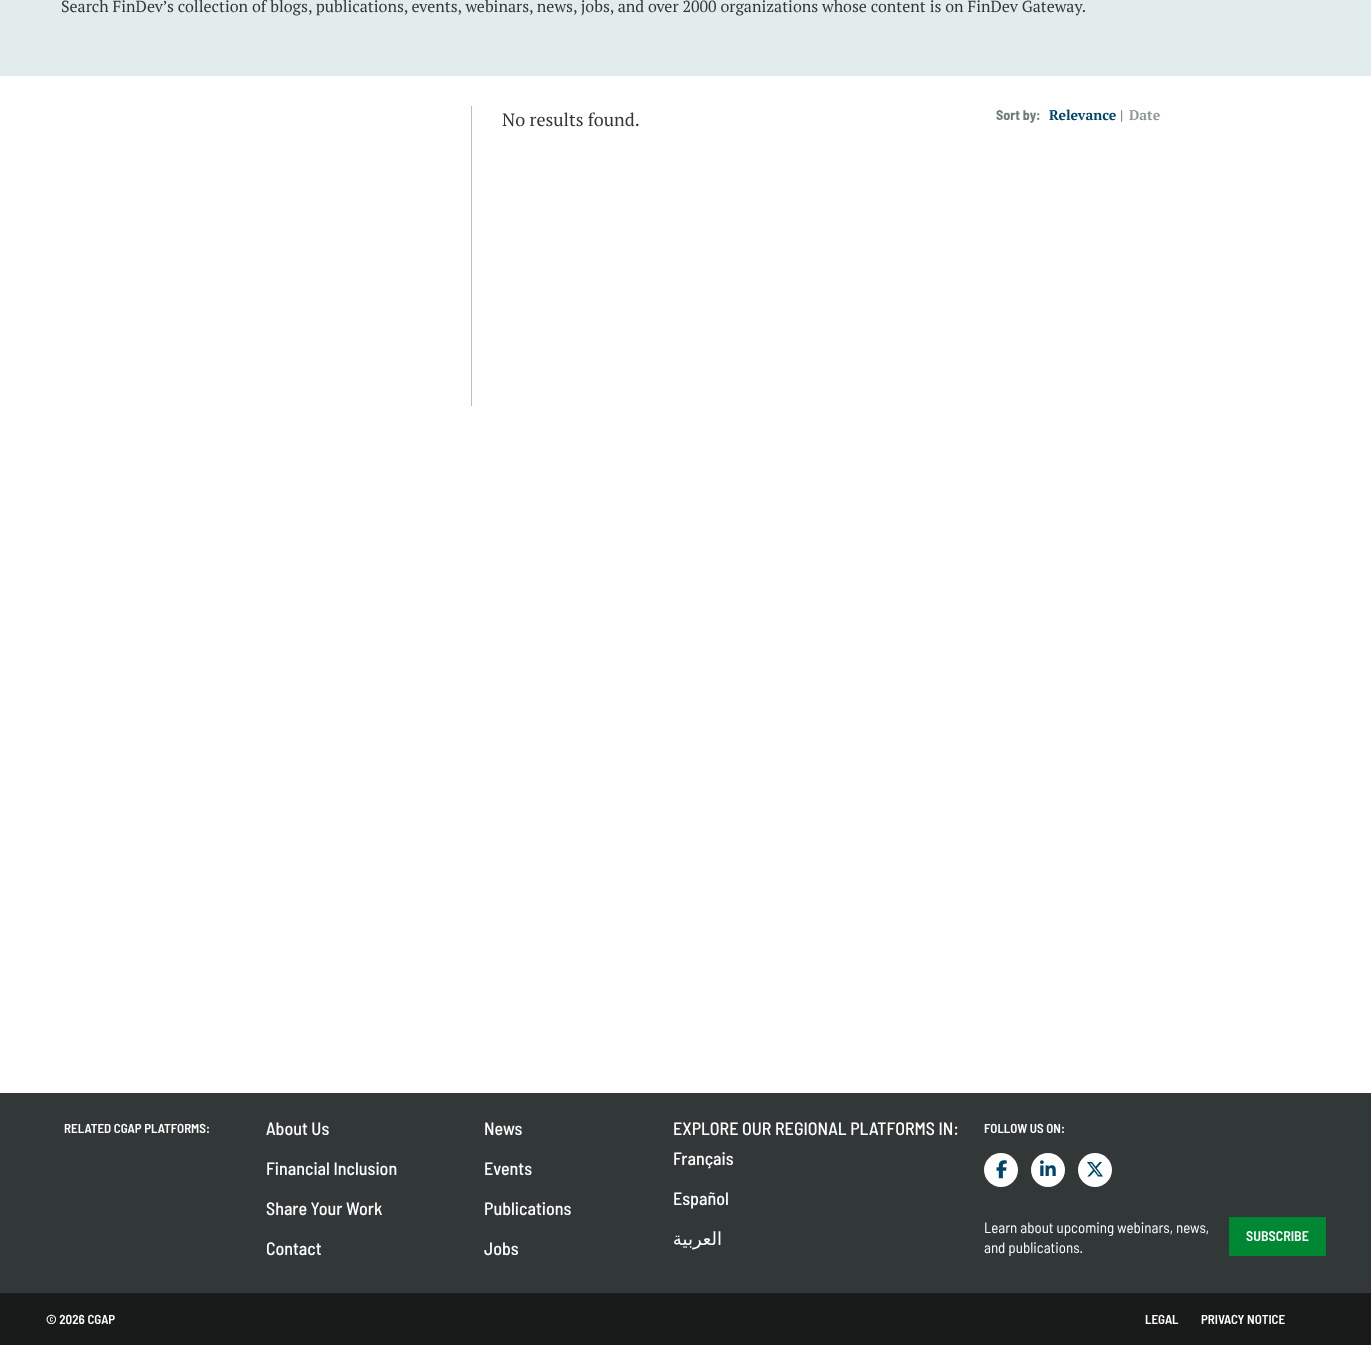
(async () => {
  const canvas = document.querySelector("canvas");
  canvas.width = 1371;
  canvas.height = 1346;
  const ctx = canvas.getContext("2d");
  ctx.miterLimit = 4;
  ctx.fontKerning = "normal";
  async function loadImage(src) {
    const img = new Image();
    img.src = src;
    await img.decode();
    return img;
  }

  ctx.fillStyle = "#ffffff";
  ctx.fillRect(0, 0, 1371, 1346);
  for (const [x, y, w, h, color] of [
    [0, 0, 1371, 76, "#e2ecec"],
    [471, 106, 1, 300, "#b2c0c0"],
    [0, 1093, 1371, 200, "#323737"],
  ]) {
    ctx.fillStyle = color;
    ctx.fillRect(x, y, w, h);
  }
  ctx.fillStyle = "#ffffff";
  ctx.beginPath();
  ctx.arc(1001, 1170, 17, 0, Math.PI * 2);
  ctx.fill();
  ctx.drawImage(await loadImage("img/1.png"), 996, 1160, 11, 19);
  ctx.beginPath();
  ctx.arc(1048, 1170, 17, 0, Math.PI * 2);
  ctx.fill();
  ctx.drawImage(await loadImage("img/2.png"), 1040, 1160, 16, 16);
  ctx.beginPath();
  ctx.arc(1095, 1170, 17, 0, Math.PI * 2);
  ctx.fill();
  ctx.drawImage(await loadImage("img/3.png"), 1087, 1161, 16, 16);
  ctx.fillStyle = "#008734";
  ctx.fillRect(1229, 1217, 97, 39);
  ctx.fillStyle = "#191b1b";
  ctx.fillRect(0, 1293, 1371, 52);
  ctx.font = "16px PT Serif";
  ctx.fillStyle = "#323737";
  ctx.fillText("Search FinDev’s collection of blogs, publications, events, webinars, news, jobs, and over 2000 organizations whose content is on FinDev Gateway.", 61, 12);
  ctx.font = "18px PT Serif";
  ctx.fillText("No results found.", 502, 126);
  ctx.font = "bold 14px Barlow Semi Condensed";
  ctx.fillStyle = "#717a7a";
  ctx.fillText("Sort by:", 996, 120);
  ctx.font = "bold 14px PT Serif";
  ctx.fillStyle = "#00456a";
  ctx.fillText("Relevance", 1049, 120);
  ctx.fillStyle = "#717a7a";
  ctx.fillText("|", 1120, 120);
  ctx.fillStyle = "#8e9a9a";
  ctx.fillText("Date", 1129, 120);
  ctx.font = "600 13px Barlow Semi Condensed";
  ctx.fillStyle = "#ffffff";
  ctx.fillText("RELATED CGAP PLATFORMS:", 64, 1133);
  ctx.font = "500 18px Barlow Semi Condensed";
  for (const [text, x, y] of [
    ["About Us", 266, 1135],
    ["Financial Inclusion", 266, 1175],
    ["Share Your Work", 266, 1215],
    ["Contact", 266, 1255],
    ["News", 484, 1135],
    ["Events", 484, 1175],
    ["Publications", 484, 1215],
    ["Jobs", 484, 1255],
    ["EXPLORE OUR REGIONAL PLATFORMS IN:", 673, 1135],
    ["Français", 673, 1165],
    ["Español", 673, 1205],
  ]) {
    ctx.fillText(text, x, y);
  }
  ctx.direction = "rtl";
  ctx.font = "18px DejaVu Sans";
  ctx.fillText("العربية", 722, 1245);
  ctx.direction = "ltr";
  ctx.font = "600 13px Barlow Semi Condensed";
  ctx.fillText("FOLLOW US ON:", 984, 1133);
  ctx.font = "15px Barlow Semi Condensed";
  ctx.fillText("Learn about upcoming webinars, news,", 984, 1233);
  ctx.fillText("and publications.", 984, 1253);
  ctx.font = "600 14px Barlow Semi Condensed";
  ctx.fillText("SUBSCRIBE", 1246, 1241);
  ctx.font = "600 13px Barlow Semi Condensed";
  for (const [text, x, y] of [
    ["© 2026 CGAP", 46, 1324],
    ["LEGAL", 1145, 1324],
    ["PRIVACY NOTICE", 1201, 1324],
  ]) {
    ctx.fillText(text, x, y);
  }
})();
